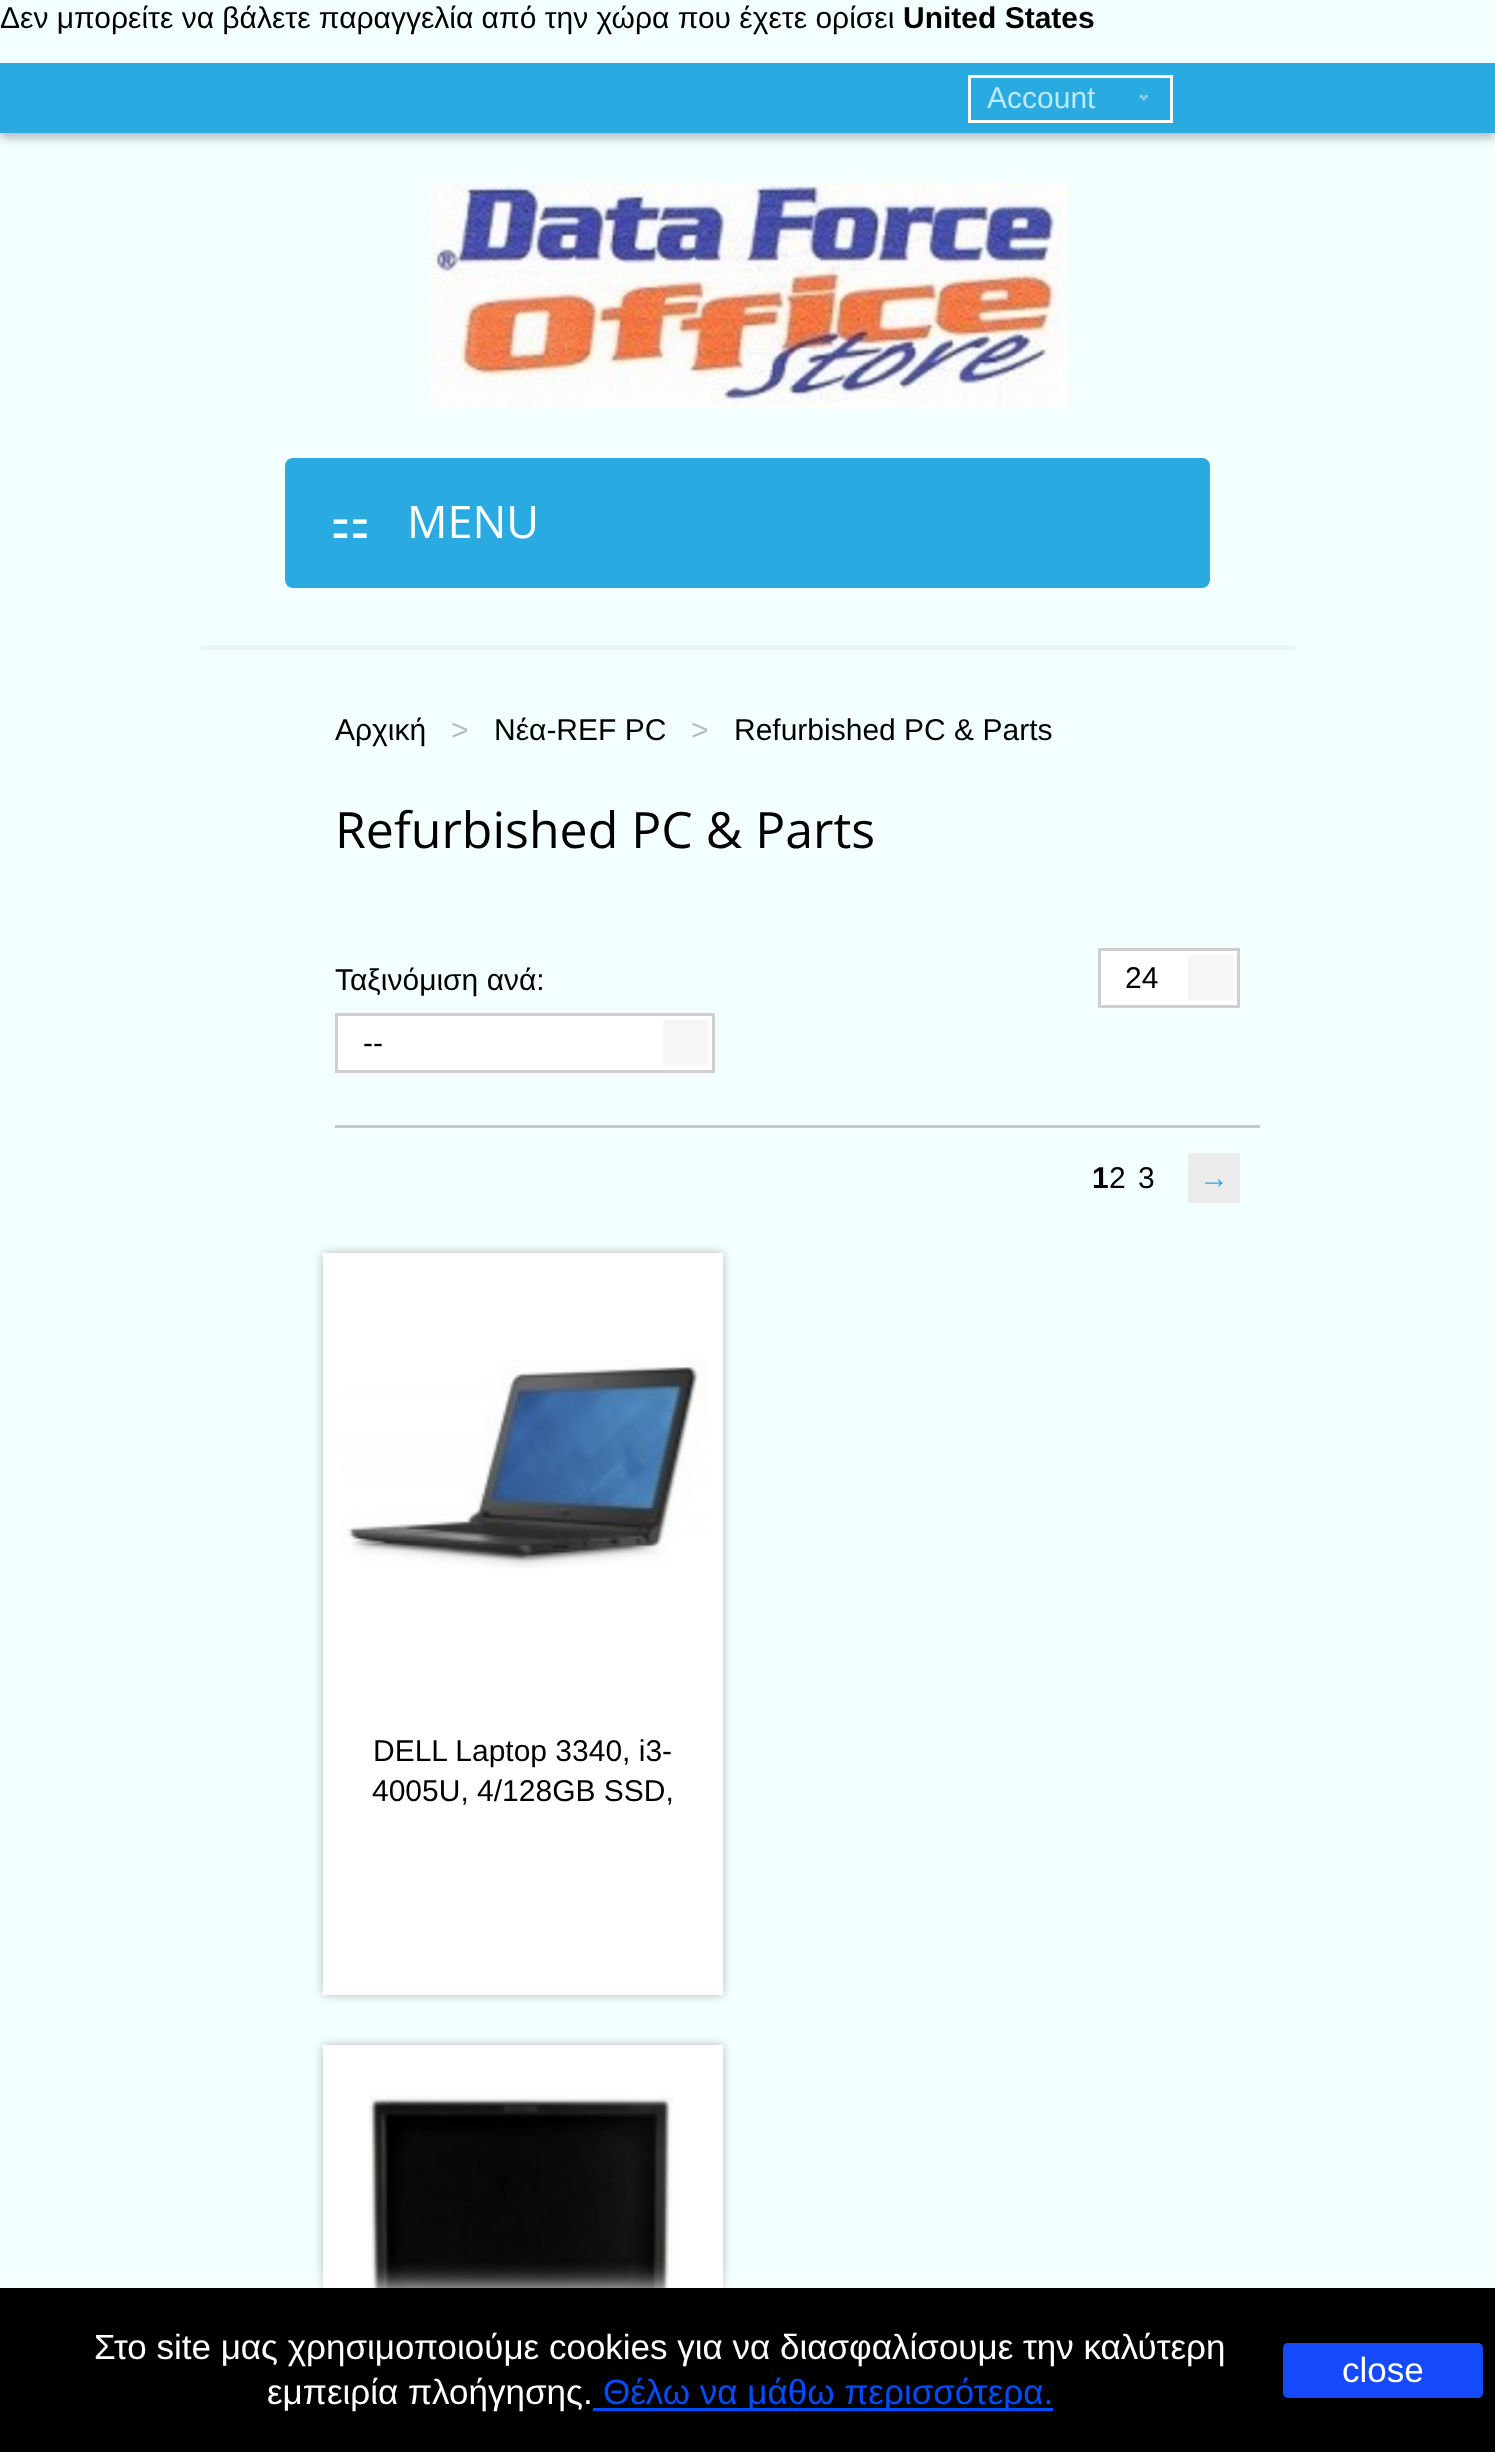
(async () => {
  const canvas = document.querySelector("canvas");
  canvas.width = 1495;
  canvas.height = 2452;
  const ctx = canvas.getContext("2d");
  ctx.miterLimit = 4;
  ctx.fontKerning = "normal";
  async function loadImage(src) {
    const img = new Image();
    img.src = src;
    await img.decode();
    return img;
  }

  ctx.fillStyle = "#f3ffff";
  ctx.fillRect(0, 0, 1495, 2452);
  ctx.save();
  ctx.beginPath();
  ctx.rect(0, 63, 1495, 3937);
  ctx.clip();
  ctx.fillStyle = "rgba(0, 0, 0, 0.27)";
  ctx.filter = "blur(5px)";
  ctx.beginPath();
  ctx.rect(0, 68, 1495, 70);
  ctx.fill();
  ctx.filter = "none";
  ctx.restore();
  ctx.fillStyle = "#29abe2";
  ctx.fillRect(0, 63, 1495, 70);
  ctx.drawImage(await loadImage("img/1.png"), 1139, 94, 10, 7);
  ctx.strokeStyle = "#ffffff";
  ctx.lineWidth = 3;
  ctx.strokeRect(969.5, 76.5, 202, 45);
  ctx.drawImage(await loadImage("img/2.png"), 429, 183, 639, 225);
  ctx.beginPath();
  ctx.roundRect(285, 458, 925, 130, 8);
  ctx.fill();
  ctx.save();
  ctx.beginPath();
  ctx.rect(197, 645, 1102, 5);
  ctx.clip();
  ctx.fillStyle = "rgba(0, 0, 0, 0.1)";
  ctx.filter = "blur(6px)";
  ctx.beginPath();
  ctx.rect(198, 650, 1100, 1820);
  ctx.fill();
  ctx.filter = "none";
  ctx.restore();
  ctx.fillStyle = "#ffffff";
  ctx.beginPath();
  ctx.rect(336.5, 1014.5, 377, 57);
  ctx.fill();
  ctx.strokeStyle = "#cfcfcf";
  ctx.stroke();
  ctx.fillStyle = "#f6f6f6";
  ctx.fillRect(663, 1020, 45, 45);
  ctx.fillStyle = "#ffffff";
  ctx.beginPath();
  ctx.rect(1099.5, 949.5, 139, 57);
  ctx.fill();
  ctx.stroke();
  for (const [x, y, w, h, color] of [
    [1188, 955, 45, 45, "#f6f6f6"],
    [335, 1125, 925, 3, "#c7c7c7"],
    [1188, 1153, 52, 50, "#ececec"],
  ]) {
    ctx.fillStyle = color;
    ctx.fillRect(x, y, w, h);
  }
  ctx.fillStyle = "rgba(0, 0, 0, 0.27)";
  ctx.filter = "blur(5px)";
  ctx.beginPath();
  ctx.rect(323, 1253, 400, 742);
  ctx.fill();
  ctx.filter = "none";
  ctx.fillStyle = "#ffffff";
  ctx.fillRect(323, 1253, 400, 742);
  ctx.drawImage(await loadImage("img/3.png"), 338, 1359, 371, 210);
  ctx.fillStyle = "rgba(0, 0, 0, 0.27)";
  ctx.filter = "blur(5px)";
  ctx.beginPath();
  ctx.rect(323, 2045, 400, 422);
  ctx.fill();
  ctx.filter = "none";
  ctx.fillStyle = "#ffffff";
  ctx.fillRect(323, 2045, 400, 243);
  ctx.drawImage(await loadImage("img/4.png"), 368, 2095, 305, 193);
  ctx.filter = "blur(12.5px)";
  ctx.beginPath();
  ctx.rect(0, 2288, 1495, 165);
  ctx.fill();
  ctx.filter = "none";
  ctx.fillStyle = "#000000";
  ctx.fillRect(0, 2288, 1495, 164);
  ctx.fillStyle = "#004cff";
  ctx.fillRect(593, 2408, 460, 3);
  ctx.fillStyle = "#144afc";
  ctx.beginPath();
  ctx.roundRect(1283, 2343, 200, 55, 5);
  ctx.fill();
  ctx.font = "30px Liberation Sans";
  ctx.fillStyle = "#000000";
  ctx.fillText("Δεν μπορείτε να βάλετε παραγγελία από την χώρα που έχετε ορίσει", 0, 28);
  ctx.font = "bold 30px Liberation Sans";
  ctx.fillText("United States", 903, 28);
  ctx.font = "30px Liberation Sans";
  ctx.fillStyle = "#baeaff";
  ctx.fillText("Account", 987, 108);
  ctx.font = "45px DejaVu Sans";
  ctx.fillStyle = "#ffffff";
  ctx.fillText("⚏", 330, 538);
  ctx.font = "45px Open Sans";
  ctx.fillText("MENU", 407, 538);
  ctx.font = "30px Liberation Sans";
  ctx.fillStyle = "#000000";
  ctx.fillText("Αρχική", 335, 740);
  ctx.fillStyle = "#bababa";
  ctx.fillText(">", 451, 740);
  ctx.fillStyle = "#000000";
  ctx.fillText("Νέα-REF PC", 494, 740);
  ctx.fillStyle = "#bababa";
  ctx.fillText(">", 691, 740);
  ctx.fillStyle = "#000000";
  ctx.fillText("Refurbished PC & Parts", 734, 740);
  ctx.font = "50px Open Sans";
  ctx.fillText("Refurbished PC & Parts", 335, 848);
  ctx.font = "30px Liberation Sans";
  for (const [text, x, y] of [
    ["Ταξινόμιση ανά:", 335, 990],
    ["--", 363, 1053],
    ["24", 1125, 988],
  ]) {
    ctx.fillText(text, x, y);
  }
  ctx.font = "bold 30px Liberation Sans";
  ctx.fillText("1", 1092, 1188);
  ctx.font = "30px Liberation Sans";
  ctx.fillText("2", 1109, 1188);
  ctx.fillText("3", 1138, 1188);
  ctx.font = "30px Liberation Serif";
  ctx.fillStyle = "#29abe2";
  ctx.fillText("→", 1199, 1188);
  ctx.font = "30px Liberation Sans";
  ctx.fillStyle = "#000000";
  ctx.fillText("DELL Laptop 3340, i3-", 373, 1761);
  ctx.fillText("4005U, 4/128GB SSD,", 372, 1801);
  ctx.font = "35px Liberation Sans";
  ctx.fillStyle = "#ffffff";
  ctx.fillText("Στο site μας χρησιμοποιούμε cookies για να διασφαλίσουμε την καλύτερη", 94, 2359);
  ctx.fillText("εμπειρία πλοήγησης.", 267, 2404);
  ctx.fillStyle = "#004cff";
  ctx.fillText("Θέλω να μάθω περισσότερα.", 603, 2404);
  ctx.fillStyle = "#ffffff";
  ctx.fillText("close", 1342, 2382);
})();
